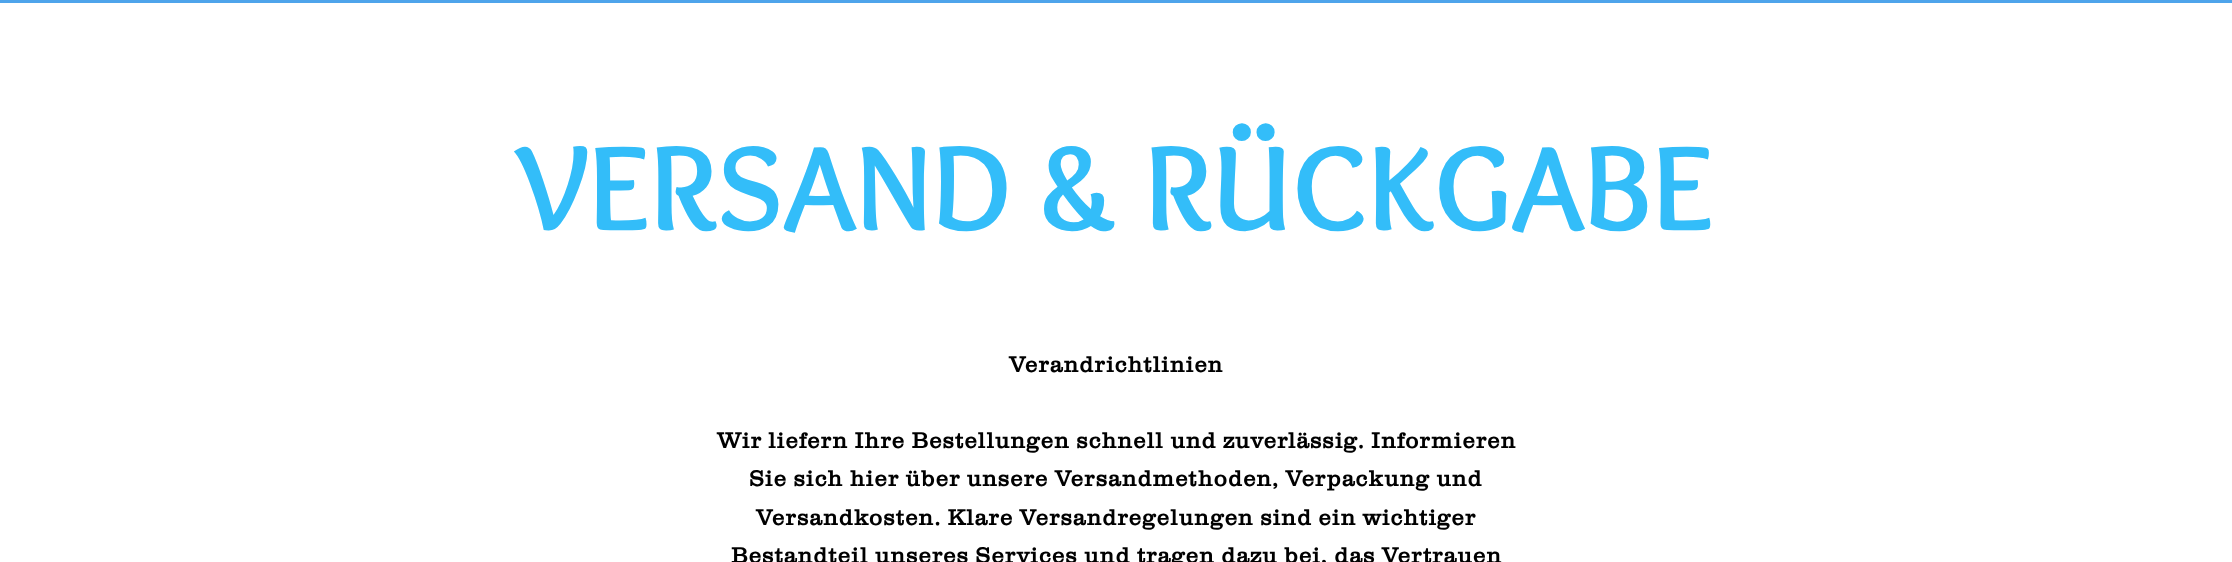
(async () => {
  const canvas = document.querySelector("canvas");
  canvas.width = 2232;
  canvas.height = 562;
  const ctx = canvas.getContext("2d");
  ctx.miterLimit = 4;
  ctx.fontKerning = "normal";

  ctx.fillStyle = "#ffffff";
  ctx.fillRect(0, 0, 2232, 562);
  ctx.fillStyle = "#4ea4eb";
  ctx.fillRect(0, 0, 2232, 3);
  ctx.font = "bold 125px Overlock";
  ctx.fillStyle = "#33bdf9";
  ctx.fillText("VERSAND & RÜCKGABE", 516, 230);
  ctx.letterSpacing = "0.9px";
  ctx.font = "bold 22.5px 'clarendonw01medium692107'";
  ctx.fillStyle = "#000000";
  for (const [text, x, y] of [
    ["Verandrichtlinien", 1009, 372],
    ["Wir liefern Ihre Bestellungen schnell und zuverlässig. Informieren", 717, 448],
    ["Sie sich hier über unsere Versandmethoden, Verpackung und", 749, 486],
    ["Versandkosten. Klare Versandregelungen sind ein wichtiger", 756, 525],
    ["Bestandteil unseres Services und tragen dazu bei, das Vertrauen", 731, 563],
  ]) {
    ctx.fillText(text, x, y);
  }
})();
